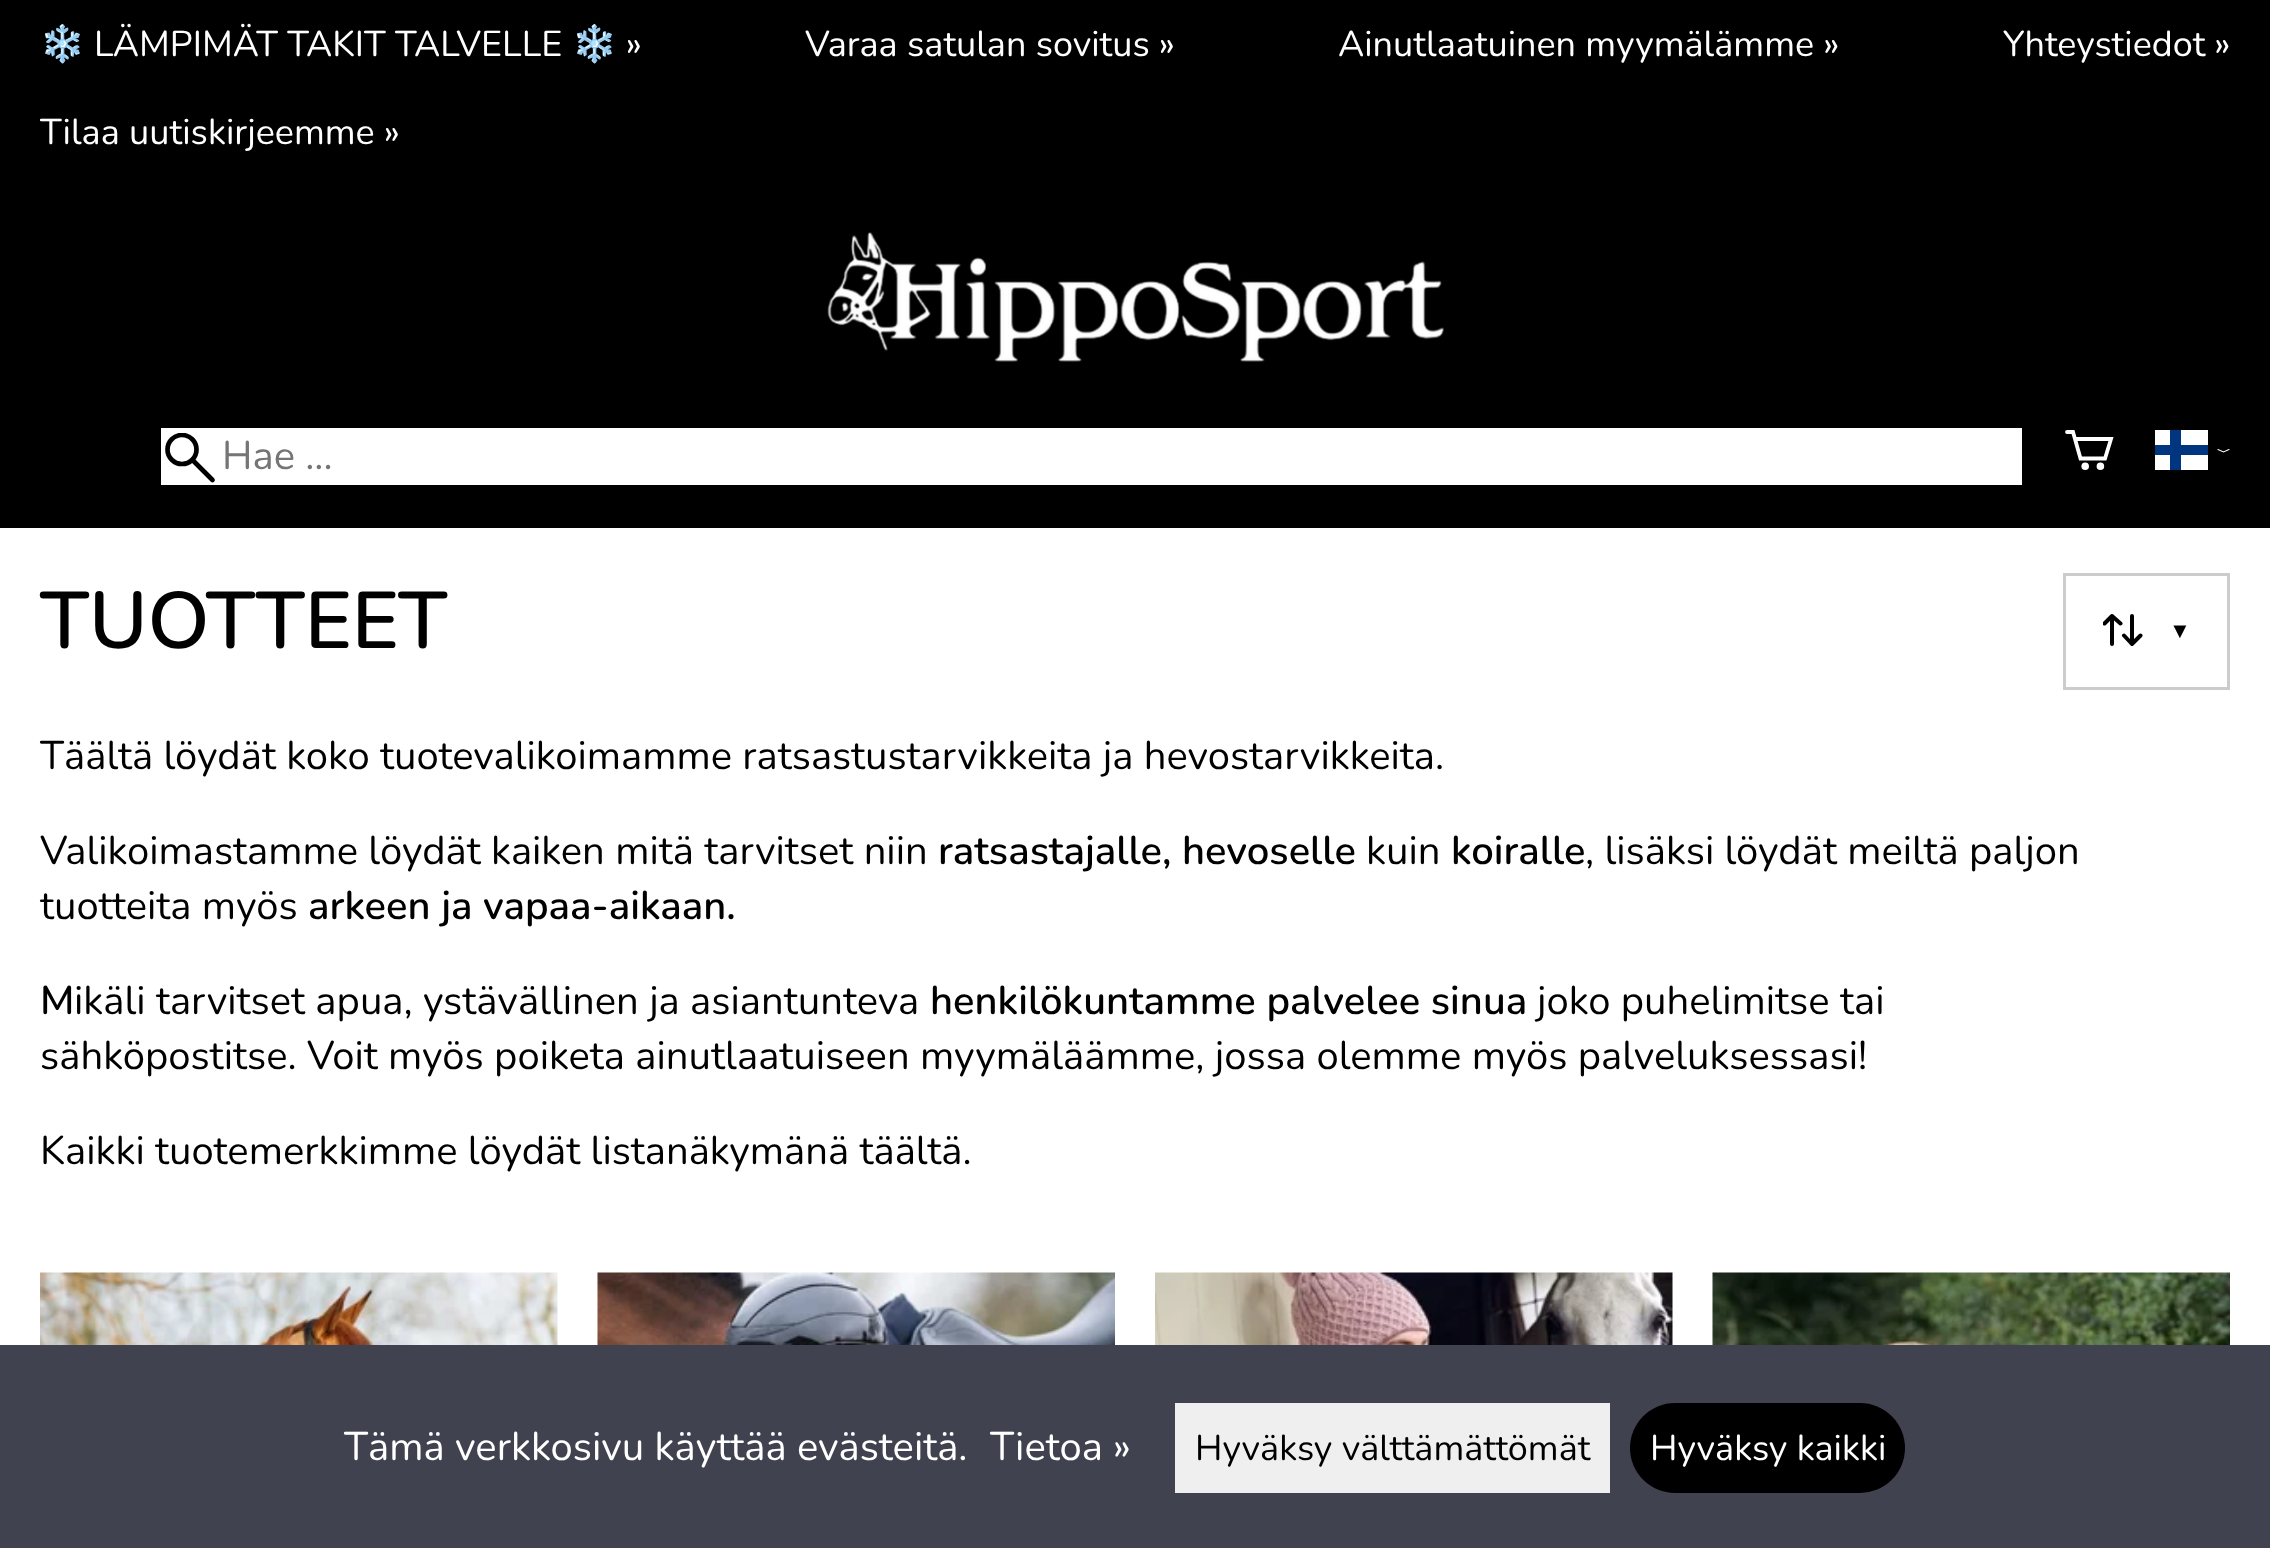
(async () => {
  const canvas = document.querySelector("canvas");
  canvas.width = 2270;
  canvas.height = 1548;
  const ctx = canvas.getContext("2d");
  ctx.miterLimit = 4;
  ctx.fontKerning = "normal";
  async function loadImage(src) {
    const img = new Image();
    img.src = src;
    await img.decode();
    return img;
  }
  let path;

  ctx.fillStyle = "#ffffff";
  ctx.fillRect(0, 0, 2270, 1548);
  ctx.fillStyle = "#000000";
  ctx.fillRect(0, 0, 2270, 528);
  ctx.drawImage(await loadImage("img/1.png"), 827, 232, 617, 130);
  ctx.fillStyle = "#ffffff";
  ctx.fillRect(161, 428, 1861, 57);
  path = new Path2D("M212.5 480L192.5 460");
  ctx.strokeStyle = "#000000";
  ctx.lineWidth = 4.7;
  ctx.lineCap = "round";
  ctx.stroke(path);
  ctx.save();
  ctx.beginPath();
  ctx.rect(165, 433, 50, 50);
  ctx.clip();
  ctx.beginPath();
  ctx.arc(182, 449.5, 14.5, 0, Math.PI * 2);
  ctx.stroke();
  ctx.restore();
  path = new Path2D("M2075.5 439H2111L2105 458.5H2080.5L2073 432H2067");
  ctx.strokeStyle = "#ffffff";
  ctx.lineWidth = 3.8;
  ctx.stroke(path);
  ctx.beginPath();
  ctx.arc(2085.2, 466.2, 1.9, 0, Math.PI * 2);
  ctx.stroke();
  ctx.beginPath();
  ctx.arc(2100.4, 466.2, 1.9, 0, Math.PI * 2);
  ctx.stroke();
  for (const [x, y, w, h, color] of [
    [2155, 430, 53, 40, "#ffffff"],
    [2155, 445, 53, 10, "#003580"],
    [2170, 430, 11, 40, "#003580"],
  ]) {
    ctx.fillStyle = color;
    ctx.fillRect(x, y, w, h);
  }
  path = new Path2D("M2218 449.5L2223.5 452L2229 449.5");
  ctx.lineWidth = 1.1;
  ctx.stroke(path);
  ctx.strokeStyle = "#cccccc";
  ctx.lineWidth = 3;
  ctx.strokeRect(2064.5, 574.5, 164, 114);
  ctx.save();
  ctx.beginPath();
  ctx.rect(2103, 610, 40, 40);
  ctx.clip();
  path = new Path2D("M2112 644V616M2112 616L2120.5 623.5M2112 616L2104.5 623.5M2132 616V644M2132 644L2140.5 635.5M2132 644L2124 635.5");
  ctx.strokeStyle = "#000000";
  ctx.lineWidth = 4;
  ctx.stroke(path);
  ctx.restore();
  ctx.drawImage(await loadImage("img/2.png"), 40, 1272, 518, 73);
  ctx.drawImage(await loadImage("img/3.png"), 597, 1272, 518, 73);
  ctx.drawImage(await loadImage("img/4.png"), 1155, 1272, 518, 73);
  ctx.drawImage(await loadImage("img/5.png"), 1712, 1272, 518, 73);
  ctx.fillStyle = "#41424f";
  ctx.fillRect(0, 1345, 2270, 203);
  ctx.fillStyle = "#efefef";
  ctx.fillRect(1175, 1403, 435, 90);
  ctx.fillStyle = "#000000";
  ctx.beginPath();
  ctx.roundRect(1630, 1403, 275, 90, 45);
  ctx.fill();
  ctx.font = "36px Noto Color Emoji";
  ctx.fillStyle = "#ffffff";
  ctx.fillText("❄️", 40, 56);
  ctx.font = "36px Nunito";
  ctx.fillText("LÄMPIMÄT TAKIT TALVELLE", 94, 56);
  ctx.font = "36px Noto Color Emoji";
  ctx.fillText("❄️", 572, 56);
  ctx.font = "36px Nunito";
  for (const [text, x, y] of [
    ["»", 626, 56],
    ["Varaa satulan sovitus »", 805, 56],
    ["Ainutlaatuinen myymälämme »", 1338, 56],
    ["Yhteystiedot »", 2003, 56],
    ["Tilaa uutiskirjeemme »", 40, 144],
  ]) {
    ctx.fillText(text, x, y);
  }
  ctx.font = "40px Nunito";
  ctx.fillStyle = "#757575";
  ctx.fillText("Hae ...", 222, 469);
  ctx.font = "600 80px Nunito";
  ctx.fillStyle = "#000000";
  ctx.fillText("TUOTTEET", 40, 648);
  ctx.font = "22px Liberation Sans";
  ctx.fillText("▼", 2169, 638);
  ctx.font = "40px Nunito";
  ctx.fillText("Täältä löydät koko tuotevalikoimamme ratsastustarvikkeita ja hevostarvikkeita.", 40, 769);
  ctx.fillText("Valikoimastamme löydät kaiken mitä tarvitset niin", 40, 864);
  ctx.font = "600 40px Nunito";
  ctx.fillText("ratsastajalle, hevoselle", 938, 864);
  ctx.font = "40px Nunito";
  ctx.fillText("kuin", 1366, 864);
  ctx.font = "600 40px Nunito";
  ctx.fillText("koiralle", 1451, 864);
  ctx.font = "40px Nunito";
  ctx.fillText(", lisäksi löydät meiltä paljon", 1585, 864);
  ctx.fillText("tuotteita myös", 40, 919);
  ctx.font = "600 40px Nunito";
  ctx.fillText("arkeen ja vapaa-aikaan.", 308, 919);
  ctx.fillText("M", 40, 1014);
  ctx.font = "40px Nunito";
  ctx.fillText("ikäli tarvitset apua, ystävällinen ja asiantunteva", 74, 1014);
  ctx.font = "600 40px Nunito";
  ctx.fillText("henkilökuntamme palvelee sinua", 930, 1014);
  ctx.font = "40px Nunito";
  for (const [text, x, y] of [
    ["joko puhelimitse tai", 1537, 1014],
    ["sähköpostitse. Voit myös poiketa ainutlaatuiseen myymäläämme, jossa olemme myös palveluksessasi!", 40, 1069],
    ["Kaikki tuotemerkkimme löydät listanäkymänä täältä.", 40, 1164],
  ]) {
    ctx.fillText(text, x, y);
  }
  ctx.fillStyle = "#ffffff";
  ctx.fillText("Tämä verkkosivu käyttää evästeitä.", 344, 1460);
  ctx.fillText("Tietoa »", 990, 1460);
  ctx.font = "36px Nunito";
  ctx.fillStyle = "#000000";
  ctx.fillText("Hyväksy välttämättömät", 1195, 1460);
  ctx.fillStyle = "#ffffff";
  ctx.fillText("Hyväksy kaikki", 1650, 1460);
})();
